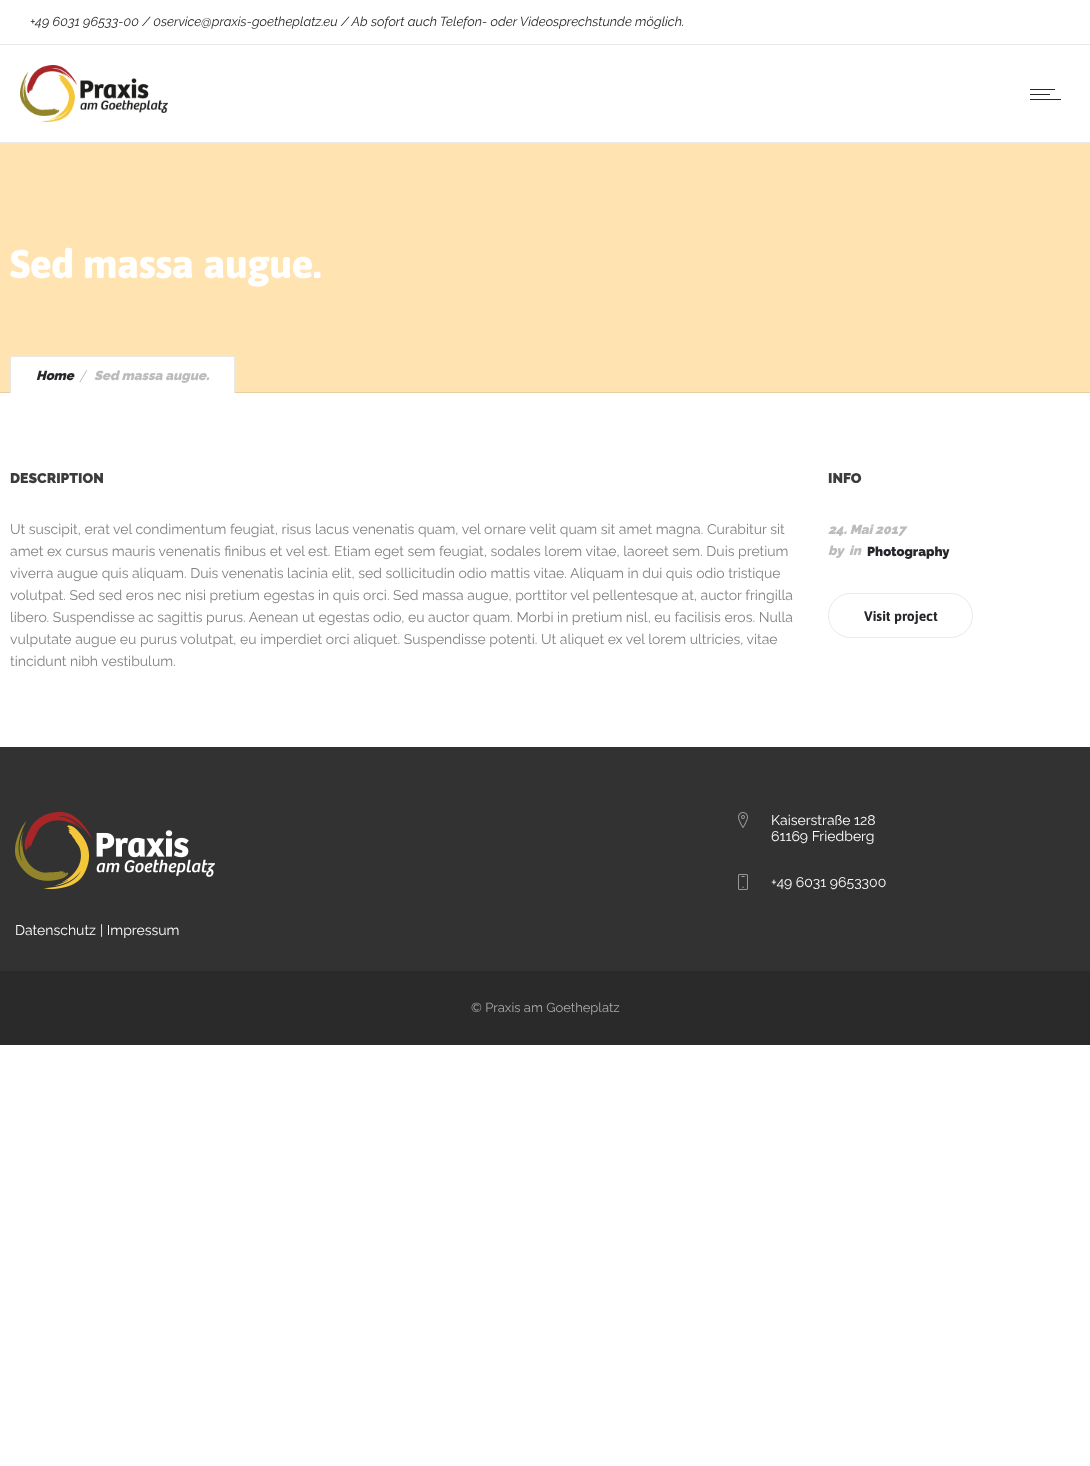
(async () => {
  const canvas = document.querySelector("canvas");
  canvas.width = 1090;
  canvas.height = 1466;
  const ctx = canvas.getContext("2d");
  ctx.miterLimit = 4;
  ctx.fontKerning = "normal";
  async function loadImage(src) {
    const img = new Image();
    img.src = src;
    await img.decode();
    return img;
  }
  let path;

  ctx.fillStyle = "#ffffff";
  ctx.fillRect(0, 0, 1090, 1466);
  ctx.fillStyle = "#eae9ea";
  ctx.fillRect(0, 142, 1090, 1);
  ctx.fillRect(0, 44, 1090, 1);
  ctx.drawImage(await loadImage("img/1.png"), 20, 65, 148, 57);
  for (const [x, y, w, h, color] of [
    [1030, 89, 25, 1, "#28262b"],
    [1030, 94, 20, 1, "#28262b"],
    [1030, 99, 31, 1, "#28262b"],
    [0, 143, 1090, 249, "#ffe3b1"],
    [0, 392, 1090, 1, "#e8cfa2"],
  ]) {
    ctx.fillStyle = color;
    ctx.fillRect(x, y, w, h);
  }
  ctx.fillStyle = "#ffffff";
  ctx.beginPath();
  ctx.roundRect(10, 356, 225, 37, [2, 2, 0, 0]);
  ctx.fill();
  for (const [x, y, w, h, color] of [
    [11, 356, 223, 1, "rgba(27, 27, 27, 0.1)"],
    [234, 357, 1, 36, "rgba(27, 27, 27, 0.1)"],
    [10, 357, 1, 36, "rgba(27, 27, 27, 0.1)"],
  ]) {
    ctx.fillStyle = color;
    ctx.fillRect(x, y, w, h);
  }
  ctx.fillStyle = "#a9a8aa";
  path = new Path2D("M86.5 370L87 370.5L80 382.5L79.5 382Z");
  ctx.fill(path);
  ctx.beginPath();
  ctx.roundRect(828.5, 593.5, 144, 44, 22);
  ctx.strokeStyle = "#eae9ea";
  ctx.stroke();
  ctx.fillStyle = "#323232";
  ctx.fillRect(0, 747, 1090, 224);
  ctx.drawImage(await loadImage("img/2.png"), 738, 812, 10, 16);
  ctx.drawImage(await loadImage("img/3.png"), 738, 874, 10, 16);
  ctx.drawImage(await loadImage("img/4.png"), 15, 812, 200, 77);
  ctx.fillStyle = "#2a2a2a";
  ctx.fillRect(0, 971, 1090, 74);
  ctx.font = "italic 13px Raleway";
  ctx.fillStyle = "#28262b";
  ctx.fillText("+49 6031 96533-00 / 0service@praxis-goetheplatz.eu / Ab sofort auch Telefon- oder Videosprechstunde möglich.", 30, 26);
  ctx.font = "800 40px Asap";
  ctx.fillStyle = "#ffffff";
  ctx.fillText("Sed massa augue.", 10, 278);
  ctx.font = "italic 900 13px Raleway";
  ctx.fillStyle = "#28262b";
  ctx.fillText("Home", 36, 380);
  ctx.fillStyle = "#bcbcbc";
  ctx.fillText("Sed massa augue.", 94, 380);
  ctx.font = "900 14px Raleway";
  ctx.fillStyle = "#3c3c3c";
  ctx.fillText("DESCRIPTION", 10, 483);
  ctx.font = "14px Raleway";
  ctx.fillStyle = "#828282";
  for (const [text, x, y] of [
    ["Ut suscipit, erat vel condimentum feugiat, risus lacus venenatis quam, vel ornare velit quam sit amet magna. Curabitur sit", 10, 534],
    ["amet ex cursus mauris venenatis finibus et vel est. Etiam eget sem feugiat, sodales lorem vitae, laoreet sem. Duis pretium", 10, 556],
    ["viverra augue quis aliquam. Duis venenatis lacinia elit, sed sollicitudin odio mattis vitae. Aliquam in dui quis odio tristique", 10, 578],
    ["volutpat. Sed sed eros nec nisi pretium egestas in quis orci. Sed massa augue, porttitor vel pellentesque at, auctor fringilla", 10, 600],
    ["libero. Suspendisse ac sagittis purus. Aenean ut egestas odio, eu auctor quam. Morbi in pretium nisl, eu facilisis eros. Nulla", 10, 622],
    ["vulputate augue eu purus volutpat, eu imperdiet orci aliquet. Suspendisse potenti. Ut aliquet ex vel lorem ultricies, vitae", 10, 644],
    ["tincidunt nibh vestibulum.", 10, 666],
  ]) {
    ctx.fillText(text, x, y);
  }
  ctx.font = "900 14px Raleway";
  ctx.fillStyle = "#3c3c3c";
  ctx.fillText("INFO", 828, 483);
  ctx.font = "italic 900 13px Raleway";
  ctx.fillStyle = "#bcbcbc";
  for (const [text, x, y] of [
    ["24. Mai 2017", 828, 534],
    ["by", 828, 555],
    ["in", 849, 555],
  ]) {
    ctx.fillText(text, x, y);
  }
  ctx.font = "900 13px Raleway";
  ctx.fillStyle = "#28262b";
  ctx.fillText("Photography", 867, 556);
  ctx.font = "bold 14px Asap";
  ctx.fillText("Visit project", 864, 621);
  ctx.font = "14px Raleway";
  ctx.fillStyle = "#ffffff";
  for (const [text, x, y] of [
    ["Kaiserstraße 128", 771, 825],
    ["61169 Friedberg", 771, 841],
    ["+49 6031 9653300", 771, 887],
    ["Datenschutz", 15, 935],
    ["| Impressum", 100, 935],
  ]) {
    ctx.fillText(text, x, y);
  }
  ctx.font = "13px Raleway";
  ctx.fillStyle = "#aaaaaa";
  ctx.fillText("© Praxis am Goetheplatz", 471, 1012);
})();
